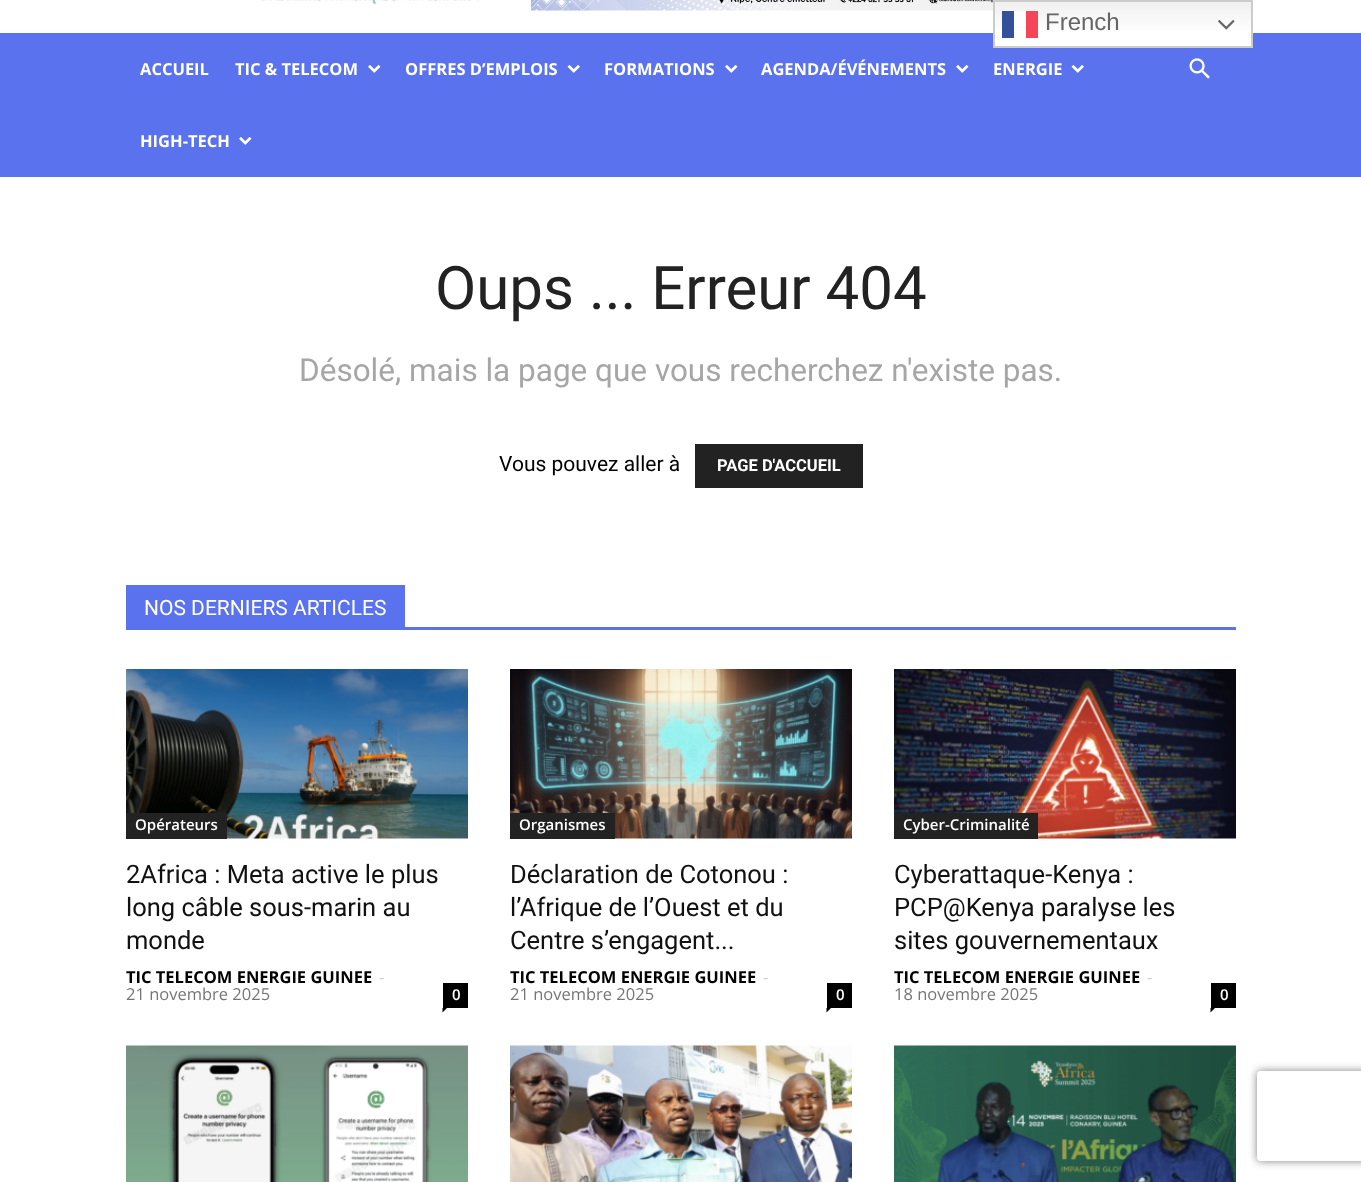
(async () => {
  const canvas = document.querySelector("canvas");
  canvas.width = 1361;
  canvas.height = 1182;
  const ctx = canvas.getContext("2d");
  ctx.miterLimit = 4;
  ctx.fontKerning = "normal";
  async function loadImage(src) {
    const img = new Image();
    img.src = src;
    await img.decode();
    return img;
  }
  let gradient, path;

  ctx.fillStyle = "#ffffff";
  ctx.fillRect(0, 0, 1361, 1182);
  ctx.fillStyle = "#5a72ee";
  ctx.fillRect(0, 33, 1361, 144);
  gradient = ctx.createLinearGradient(1123, 0, 1123, 48);
  gradient.addColorStop(0, "#efefef");
  gradient.addColorStop(0.7, "#ffffff");
  ctx.fillStyle = gradient;
  ctx.fillRect(995, 2, 256, 44);
  gradient = ctx.createLinearGradient(1123, 0, 1123, 48);
  gradient.addColorStop(0, "#fcfcfc");
  gradient.addColorStop(0.7, "#ffffff");
  ctx.fillStyle = gradient;
  ctx.fillRect(1014, 11, 12, 15);
  ctx.strokeStyle = "#cccccc";
  ctx.lineWidth = 2;
  ctx.strokeRect(994, 1, 258, 46);
  ctx.fillStyle = "#335198";
  ctx.fillRect(1002, 11, 12, 27);
  ctx.fillStyle = "#f54659";
  ctx.fillRect(1026, 11, 12, 27);
  ctx.drawImage(await loadImage("img/1.png"), 1218, 20, 17, 10);
  ctx.drawImage(await loadImage("img/2.png"), 261, 0, 218, 5);
  ctx.drawImage(await loadImage("img/3.png"), 531, 0, 462, 11);
  ctx.drawImage(await loadImage("img/4.png"), 368, 65, 13, 8);
  ctx.drawImage(await loadImage("img/5.png"), 567, 65, 13, 8);
  ctx.drawImage(await loadImage("img/4.png"), 725, 65, 13, 8);
  ctx.drawImage(await loadImage("img/4.png"), 956, 65, 13, 8);
  ctx.drawImage(await loadImage("img/5.png"), 1071, 65, 13, 8);
  ctx.drawImage(await loadImage("img/4.png"), 239, 137, 13, 8);
  ctx.drawImage(await loadImage("img/6.png"), 1189, 58, 21, 21);
  for (const [x, y, w, h, color] of [
    [695, 444, 168, 44, "#222222"],
    [126, 627, 1110, 3, "#5a72ee"],
    [126, 585, 279, 42, "#5a72ee"],
  ]) {
    ctx.fillStyle = color;
    ctx.fillRect(x, y, w, h);
  }
  ctx.drawImage(await loadImage("img/7.png"), 126, 669, 342, 170);
  ctx.fillStyle = "#222222";
  ctx.fillRect(126, 813, 101, 26);
  ctx.fillStyle = "#000000";
  ctx.fillRect(443, 983, 25, 25);
  path = new Path2D("M442.5 1008H447L442.5 1012.5Z");
  ctx.fill(path);
  ctx.drawImage(await loadImage("img/8.png"), 510, 669, 342, 170);
  ctx.fillStyle = "#222222";
  ctx.fillRect(510, 813, 105, 26);
  ctx.fillStyle = "#000000";
  ctx.fillRect(827, 983, 25, 25);
  path = new Path2D("M826.5 1008H831L826.5 1012.5Z");
  ctx.fill(path);
  ctx.drawImage(await loadImage("img/9.png"), 894, 669, 342, 170);
  ctx.fillStyle = "#222222";
  ctx.fillRect(894, 813, 144, 26);
  ctx.fillStyle = "#000000";
  ctx.fillRect(1211, 983, 25, 25);
  path = new Path2D("M1210.5 1008H1215L1210.5 1012.5Z");
  ctx.fill(path);
  ctx.drawImage(await loadImage("img/10.png"), 126, 1045, 342, 137);
  ctx.drawImage(await loadImage("img/11.png"), 510, 1045, 342, 137);
  ctx.drawImage(await loadImage("img/12.png"), 894, 1045, 342, 137);
  ctx.save();
  path = new Path2D("M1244 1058H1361V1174H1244ZM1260 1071H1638C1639.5 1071 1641 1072.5 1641 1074V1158C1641 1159.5 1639.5 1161 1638 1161H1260C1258.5 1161 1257 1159.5 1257 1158V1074C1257 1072.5 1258.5 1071 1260 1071Z");
  ctx.clip(path, "evenodd");
  ctx.fillStyle = "#808080";
  ctx.filter = "blur(4px)";
  ctx.beginPath();
  ctx.roundRect(1257, 1071, 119, 90, 3);
  ctx.fill();
  ctx.filter = "none";
  ctx.restore();
  ctx.font = "24px Liberation Sans";
  ctx.fillStyle = "#666666";
  ctx.fillText("French", 1045, 30);
  ctx.font = "bold 16.5px Open Sans";
  ctx.fillStyle = "#ffffff";
  for (const [text, x, y] of [
    ["ACCUEIL", 140, 75],
    ["TIC & TELECOM", 235, 75],
    ["OFFRES D’EMPLOIS", 405, 75],
    ["FORMATIONS", 604, 75],
    ["AGENDA/ÉVÉNEMENTS", 761, 75],
    ["ENERGIE", 993, 75],
    ["HIGH-TECH", 140, 147],
  ]) {
    ctx.fillText(text, x, y);
  }
  ctx.font = "60px Roboto";
  ctx.fillStyle = "#222222";
  ctx.fillText("Oups ... Erreur 404", 435, 309);
  ctx.font = "31.5px Roboto";
  ctx.fillStyle = "#a6a6a6";
  ctx.fillText("Désolé, mais la page que vous recherchez n'existe pas.", 299, 381);
  ctx.font = "21px Roboto";
  ctx.fillStyle = "#000000";
  ctx.fillText("Vous pouvez aller à", 499, 471);
  ctx.font = "bold 16.5px Roboto";
  ctx.fillStyle = "#ffffff";
  ctx.fillText("PAGE D'ACCUEIL", 717, 471);
  ctx.font = "21px Roboto";
  ctx.fillText("NOS DERNIERS ARTICLES", 144, 615);
  ctx.font = "600 15px Open Sans";
  ctx.fillText("Opérateurs", 135, 830);
  ctx.font = "25.5px Roboto";
  ctx.fillStyle = "#111111";
  for (const [text, x, y] of [
    ["2Africa : Meta active le plus", 126, 883],
    ["long câble sous-marin au", 126, 916],
    ["monde", 126, 949],
  ]) {
    ctx.fillText(text, x, y);
  }
  ctx.font = "bold 16.5px Open Sans";
  ctx.fillStyle = "#000000";
  ctx.fillText("TIC TELECOM ENERGIE GUINEE", 126, 983);
  ctx.font = "16.5px Open Sans";
  ctx.fillStyle = "#cccccc";
  ctx.fillText("-", 379, 983);
  ctx.fillStyle = "#767676";
  ctx.fillText("21 novembre 2025", 126, 1000);
  ctx.font = "600 15px Open Sans";
  ctx.fillStyle = "#ffffff";
  ctx.fillText("0", 452, 1000);
  ctx.fillText("Organismes", 519, 830);
  ctx.font = "25.5px Roboto";
  ctx.fillStyle = "#111111";
  for (const [text, x, y] of [
    ["Déclaration de Cotonou :", 510, 883],
    ["l’Afrique de l’Ouest et du", 510, 916],
    ["Centre s’engagent...", 510, 949],
  ]) {
    ctx.fillText(text, x, y);
  }
  ctx.font = "bold 16.5px Open Sans";
  ctx.fillStyle = "#000000";
  ctx.fillText("TIC TELECOM ENERGIE GUINEE", 510, 983);
  ctx.font = "16.5px Open Sans";
  ctx.fillStyle = "#cccccc";
  ctx.fillText("-", 763, 983);
  ctx.fillStyle = "#767676";
  ctx.fillText("21 novembre 2025", 510, 1000);
  ctx.font = "600 15px Open Sans";
  ctx.fillStyle = "#ffffff";
  ctx.fillText("0", 836, 1000);
  ctx.fillText("Cyber-Criminalité", 903, 830);
  ctx.font = "25.5px Roboto";
  ctx.fillStyle = "#111111";
  for (const [text, x, y] of [
    ["Cyberattaque-Kenya :", 894, 883],
    ["PCP@Kenya paralyse les", 894, 916],
    ["sites gouvernementaux", 894, 949],
  ]) {
    ctx.fillText(text, x, y);
  }
  ctx.font = "bold 16.5px Open Sans";
  ctx.fillStyle = "#000000";
  ctx.fillText("TIC TELECOM ENERGIE GUINEE", 894, 983);
  ctx.font = "16.5px Open Sans";
  ctx.fillStyle = "#cccccc";
  ctx.fillText("-", 1147, 983);
  ctx.fillStyle = "#767676";
  ctx.fillText("18 novembre 2025", 894, 1000);
  ctx.font = "600 15px Open Sans";
  ctx.fillStyle = "#ffffff";
  ctx.fillText("0", 1220, 1000);
})();
